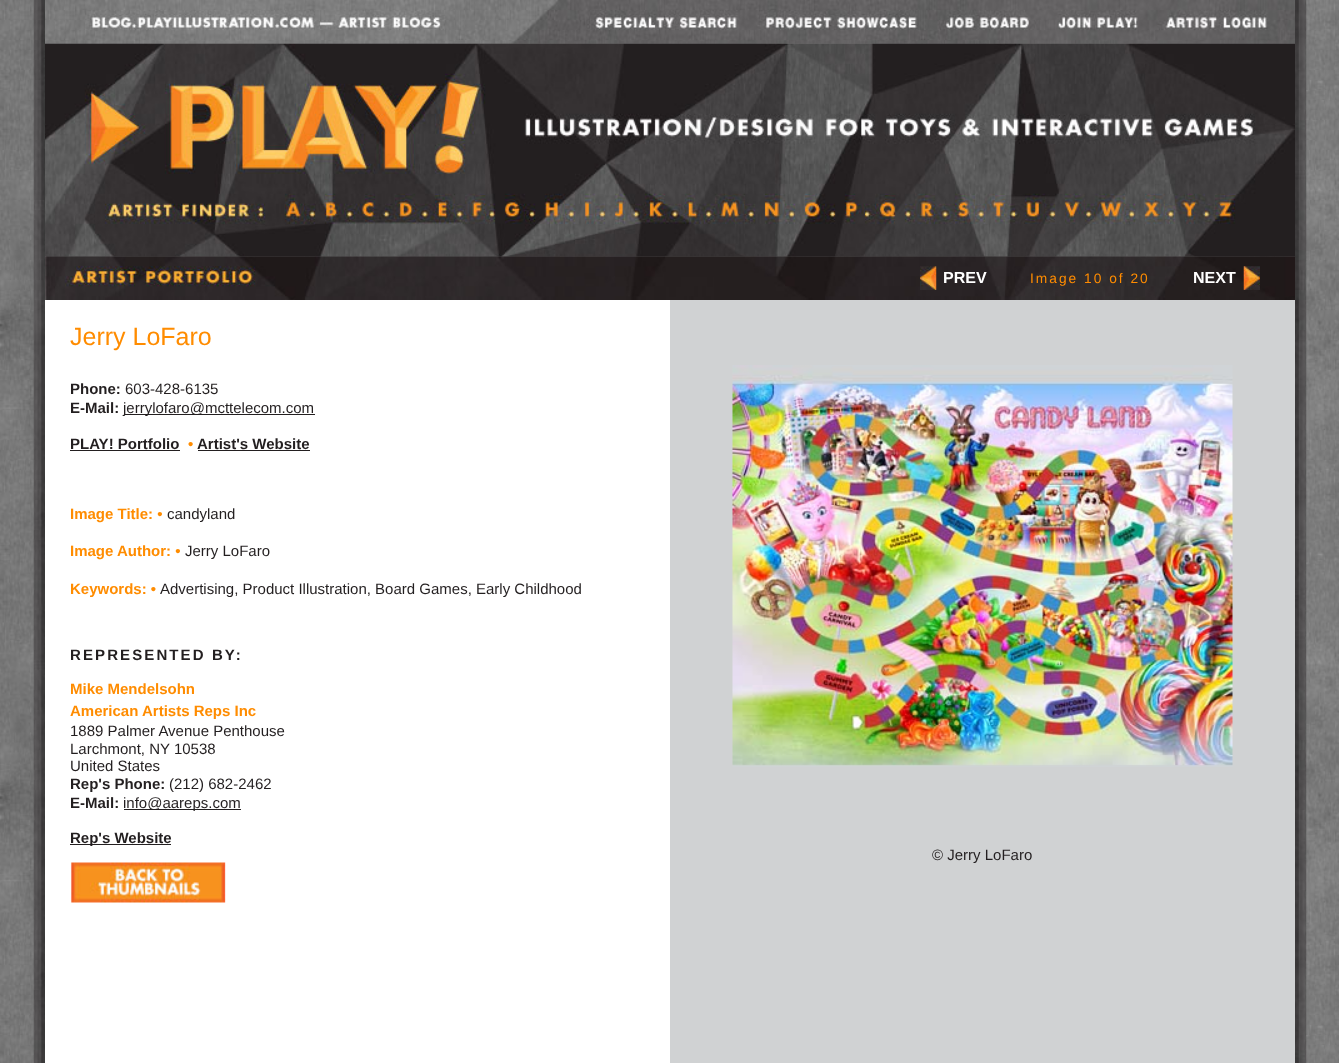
(async () => {
  const canvas = document.querySelector("canvas");
  canvas.width = 1339;
  canvas.height = 1063;
  const ctx = canvas.getContext("2d");
  ctx.miterLimit = 4;
  ctx.fontKerning = "normal";
  async function loadImage(src) {
    const img = new Image();
    img.src = src;
    await img.decode();
    return img;
  }

  ctx.fillStyle = "#ffffff";
  ctx.fillRect(0, 0, 1339, 1063);
  ctx.drawImage(await loadImage("img/1.png"), 0, 0, 1339, 1063);
  ctx.drawImage(await loadImage("img/2.png"), 33, 0, 12, 1063);
  ctx.drawImage(await loadImage("img/3.png"), 45, 0, 463, 44);
  ctx.drawImage(await loadImage("img/4.png"), 507, 0, 788, 44);
  ctx.drawImage(await loadImage("img/5.png"), 1295, 0, 12, 1063);
  ctx.drawImage(await loadImage("img/7.png"), 45, 256, 1250, 44);
  ctx.drawImage(await loadImage("img/6.png"), 45, 43, 1250, 214);
  ctx.drawImage(await loadImage("img/8.png"), 920, 266, 17, 24);
  ctx.drawImage(await loadImage("img/9.png"), 1243, 266, 17, 24);
  for (const [x, y, w, h, color] of [
    [45, 300, 625, 763, "#ffffff"],
    [124, 414, 191, 1, "#231f20"],
    [70, 450, 110, 1, "#231f20"],
    [198, 450, 112, 1, "#231f20"],
    [124, 809, 117, 1, "#231f20"],
    [70, 844, 101, 1, "#231f20"],
  ]) {
    ctx.fillStyle = color;
    ctx.fillRect(x, y, w, h);
  }
  ctx.drawImage(await loadImage("img/10.png"), 70, 862, 156, 41);
  ctx.fillStyle = "#d0d2d3";
  ctx.fillRect(670, 300, 625, 763);
  ctx.drawImage(await loadImage("img/11.png"), 732, 365, 501, 402);
  ctx.font = "bold 16px Liberation Sans";
  ctx.fillStyle = "#ffffff";
  ctx.fillText("PREV", 943, 283);
  ctx.letterSpacing = "2px";
  ctx.font = "13.75px Liberation Sans";
  ctx.fillStyle = "#ff8c00";
  ctx.fillText("Image 10 of 20", 1030, 283);
  ctx.letterSpacing = "0px";
  ctx.font = "bold 16px Liberation Sans";
  ctx.fillStyle = "#ffffff";
  ctx.fillText("NEXT", 1193, 283);
  ctx.font = "25px Liberation Sans";
  ctx.fillStyle = "#ff8c00";
  ctx.fillText("Jerry LoFaro", 70, 345);
  ctx.font = "bold 15px Liberation Sans";
  ctx.fillStyle = "#231f20";
  ctx.fillText("Phone:", 70, 394);
  ctx.font = "15px Liberation Sans";
  ctx.fillText("603-428-6135", 125, 394);
  ctx.font = "bold 15px Liberation Sans";
  ctx.fillText("E-Mail:", 70, 413);
  ctx.font = "15px Liberation Sans";
  ctx.fillText("jerrylofaro@mcttelecom.com", 123, 413);
  ctx.font = "bold 15px Liberation Sans";
  ctx.fillText("PLAY! Portfolio", 70, 449);
  ctx.fillStyle = "#ff8c00";
  ctx.fillText("•", 188, 449);
  ctx.fillStyle = "#231f20";
  ctx.fillText("Artist's Website", 197, 449);
  ctx.fillStyle = "#ff8c00";
  ctx.fillText("Image Title: •", 70, 519);
  ctx.font = "15px Liberation Sans";
  ctx.fillStyle = "#231f20";
  ctx.fillText("candyland", 167, 519);
  ctx.font = "bold 15px Liberation Sans";
  ctx.fillStyle = "#ff8c00";
  ctx.fillText("Image Author: •", 70, 556);
  ctx.font = "15px Liberation Sans";
  ctx.fillStyle = "#231f20";
  ctx.fillText("Jerry LoFaro", 185, 556);
  ctx.font = "bold 15px Liberation Sans";
  ctx.fillStyle = "#ff8c00";
  ctx.fillText("Keywords: •", 70, 594);
  ctx.font = "15px Liberation Sans";
  ctx.fillStyle = "#231f20";
  ctx.fillText("Advertising, Product Illustration, Board Games, Early Childhood", 160, 594);
  ctx.letterSpacing = "2.1px";
  ctx.font = "bold 15px Liberation Sans";
  ctx.fillText("REPRESENTED BY:", 70, 660);
  ctx.letterSpacing = "0px";
  ctx.fillStyle = "#ff8c00";
  ctx.fillText("Mike Mendelsohn", 70, 694);
  ctx.fillText("American Artists Reps Inc", 70, 716);
  ctx.font = "15px Liberation Sans";
  ctx.fillStyle = "#231f20";
  for (const [text, x, y] of [
    ["1889 Palmer Avenue Penthouse", 70, 736],
    ["Larchmont, NY 10538", 70, 754],
    ["United States", 70, 771],
  ]) {
    ctx.fillText(text, x, y);
  }
  ctx.font = "bold 15px Liberation Sans";
  ctx.fillText("Rep's Phone:", 70, 789);
  ctx.font = "15px Liberation Sans";
  ctx.fillText("(212) 682-2462", 169, 789);
  ctx.font = "bold 15px Liberation Sans";
  ctx.fillText("E-Mail:", 70, 808);
  ctx.font = "15px Liberation Sans";
  ctx.fillText("info@aareps.com", 123, 808);
  ctx.font = "bold 15px Liberation Sans";
  ctx.fillText("Rep's Website", 70, 843);
  ctx.font = "15px Liberation Sans";
  ctx.fillText("© Jerry LoFaro", 932, 860);
})();
